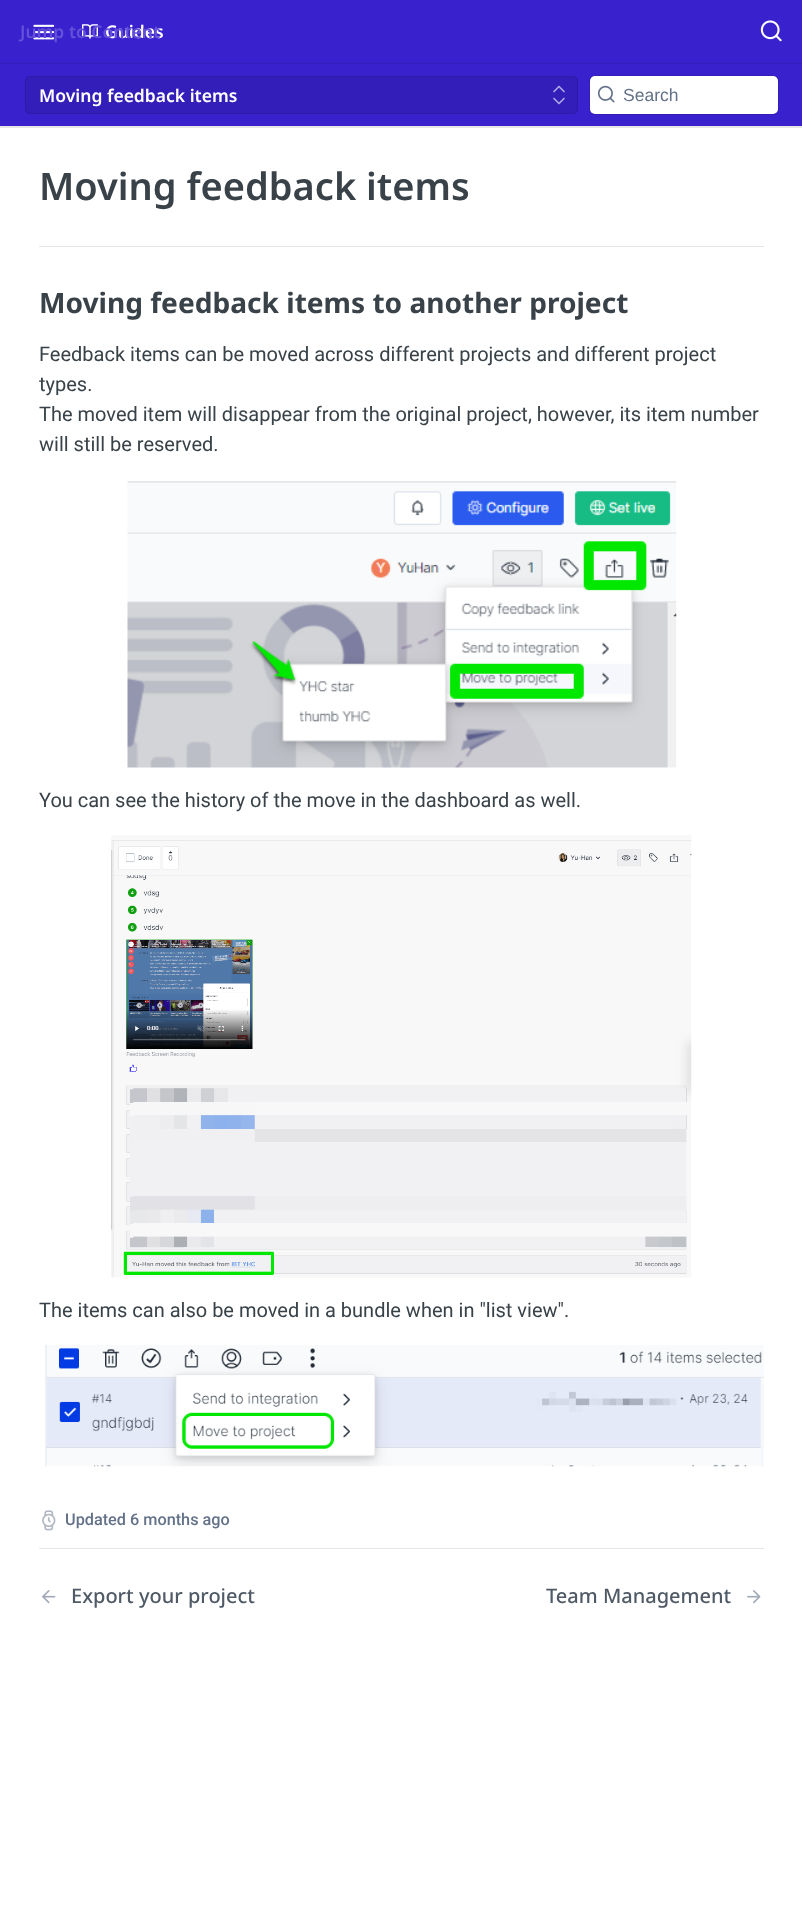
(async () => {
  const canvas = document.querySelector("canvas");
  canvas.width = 802;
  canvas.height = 1907;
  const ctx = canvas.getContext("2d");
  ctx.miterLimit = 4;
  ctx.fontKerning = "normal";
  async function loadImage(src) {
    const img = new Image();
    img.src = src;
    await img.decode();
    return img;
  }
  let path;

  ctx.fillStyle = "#ffffff";
  ctx.fillRect(0, 0, 802, 1907);
  ctx.fillStyle = "#e6e6e6";
  path = new Path2D("M0 126V128H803V1H802V126Z");
  ctx.fill(path);
  ctx.fillStyle = "#3a21ce";
  ctx.fillRect(0, 0, 802, 126);
  ctx.fillStyle = "#341eb9";
  ctx.fillRect(0, 63, 802, 1);
  ctx.drawImage(await loadImage("img/1.png"), 33, 24, 22, 16);
  ctx.drawImage(await loadImage("img/2.png"), 82, 24, 16, 15);
  ctx.drawImage(await loadImage("img/3.png"), 760, 20, 22, 22);
  ctx.beginPath();
  ctx.roundRect(25, 76, 553, 38, 5);
  ctx.fill();
  ctx.beginPath();
  ctx.roundRect(25.5, 76.5, 552, 37, 4.5);
  ctx.strokeStyle = "rgba(0, 0, 0, 0.1)";
  ctx.stroke();
  path = new Path2D("M554 98.5L559 103.5L564 98.5M564 91.5L559 86.5L554 91.5");
  ctx.strokeStyle = "#aea5e3";
  ctx.lineWidth = 1.7;
  ctx.lineCap = "round";
  ctx.lineJoin = "round";
  ctx.stroke(path);
  ctx.beginPath();
  ctx.roundRect(589.5, 75.5, 189, 39, 5.5);
  ctx.strokeStyle = "#341eb9";
  ctx.lineWidth = 1;
  ctx.lineJoin = "miter";
  ctx.stroke();
  ctx.fillStyle = "#ffffff";
  ctx.beginPath();
  ctx.roundRect(590, 76, 188, 38, 5);
  ctx.fill();
  ctx.drawImage(await loadImage("img/4.png"), 597, 85, 18, 18);
  ctx.fillStyle = "#e6e6e6";
  ctx.fillRect(39, 246, 725, 1);
  ctx.drawImage(await loadImage("img/5.png"), 127, 481, 550, 287);
  ctx.drawImage(await loadImage("img/6.png"), 111, 835, 581, 443);
  ctx.drawImage(await loadImage("img/7.png"), 45, 1345, 719, 122);
  ctx.drawImage(await loadImage("img/8.png"), 42, 1510, 14, 21);
  ctx.fillRect(39, 1548, 725, 1);
  ctx.drawImage(await loadImage("img/9.png"), 42, 1590, 14, 14);
  ctx.drawImage(await loadImage("img/10.png"), 747, 1590, 14, 14);
  ctx.font = "600 17.5px Noto Sans";
  ctx.fillStyle = "#ffffff";
  ctx.fillText("Guides", 105, 38);
  ctx.fillStyle = "#6551d9";
  ctx.fillText("Jump to Content", 20, 38);
  ctx.fillStyle = "#ffffff";
  ctx.fillText("Moving feedback items", 39, 102);
  ctx.font = "17.5px Liberation Sans";
  ctx.fillStyle = "#637288";
  ctx.fillText("Search", 623, 101);
  ctx.font = "600 38px Noto Sans";
  ctx.fillStyle = "#384248";
  ctx.fillText("Moving feedback items", 39, 200);
  ctx.font = "bold 28.1px Noto Sans";
  ctx.fillText("Moving feedback items to another project", 39, 313);
  ctx.font = "20px Roboto";
  for (const [text, x, y] of [
    ["Feedback items can be moved across different projects and different project", 39, 361],
    ["types.", 39, 391],
    ["The moved item will disappear from the original project, however, its item number", 39, 421],
    ["will still be reserved.", 39, 451],
    ["You can see the history of the move in the dashboard as well.", 39, 807],
    ["The items can also be moved in a bundle when in \"list view\".", 39, 1317],
  ]) {
    ctx.fillText(text, x, y);
  }
  ctx.font = "500 16.25px Roboto";
  ctx.fillStyle = "#637288";
  ctx.fillText("Updated 6 months ago", 65, 1525);
  ctx.font = "500 20px Noto Sans";
  ctx.fillStyle = "#4f5a66";
  ctx.fillText("Export your project", 71, 1603);
  ctx.fillText("Team Management", 546, 1603);
})();
